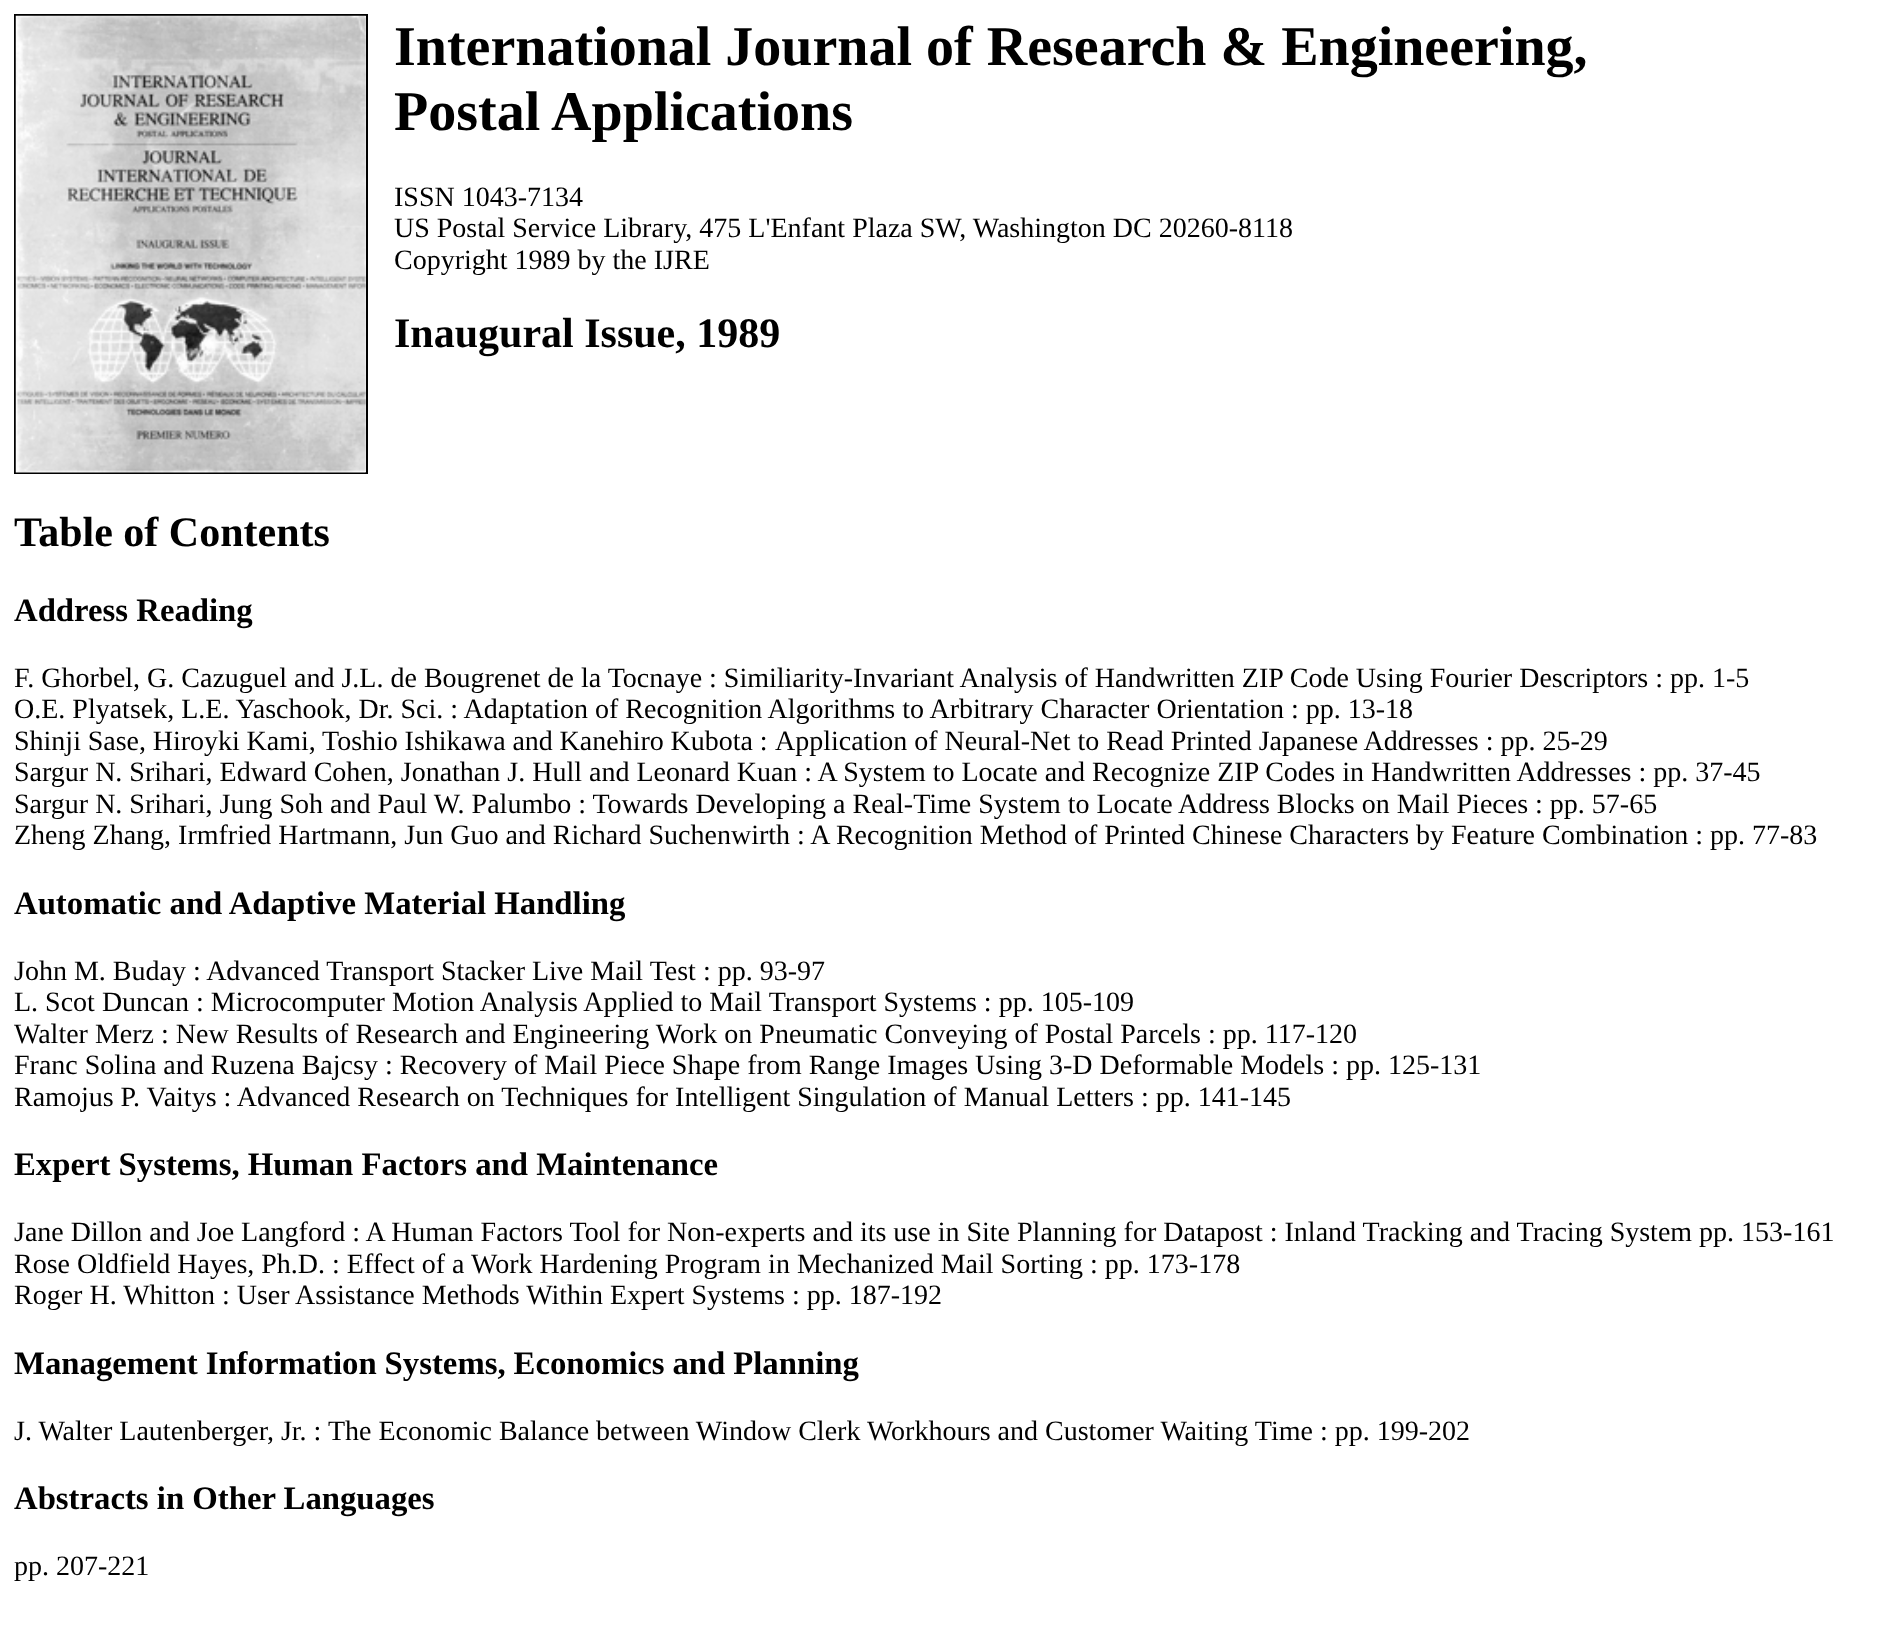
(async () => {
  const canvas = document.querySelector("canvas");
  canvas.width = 1888;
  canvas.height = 1631;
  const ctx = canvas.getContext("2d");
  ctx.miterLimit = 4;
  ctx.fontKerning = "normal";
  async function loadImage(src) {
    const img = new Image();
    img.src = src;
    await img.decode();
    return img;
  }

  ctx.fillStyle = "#ffffff";
  ctx.fillRect(0, 0, 1888, 1631);
  ctx.strokeStyle = "#000000";
  ctx.lineWidth = 2;
  ctx.strokeRect(15, 15, 352, 458);
  ctx.drawImage(await loadImage("img/1.png"), 15, 15, 351, 458);
  ctx.font = "bold 56px Liberation Serif";
  ctx.fillStyle = "#000000";
  ctx.fillText("International Journal of Research & Engineering,", 394, 65);
  ctx.fillText("Postal Applications", 394, 130);
  ctx.font = "28px Liberation Serif";
  for (const [text, x, y] of [
    ["ISSN 1043-7134", 394, 206],
    ["US Postal Service Library, 475 L'Enfant Plaza SW, Washington DC 20260-8118", 394, 237],
    ["Copyright 1989 by the IJRE", 394, 269],
  ]) {
    ctx.fillText(text, x, y);
  }
  ctx.font = "bold 42px Liberation Serif";
  ctx.fillText("Inaugural Issue, 1989", 394, 347);
  ctx.fillText("Table of Contents", 14, 546);
  ctx.font = "bold 32.75px Liberation Serif";
  ctx.fillText("Address Reading", 14, 621);
  ctx.font = "28px Liberation Serif";
  ctx.fillText("F. Ghorbel, G. Cazuguel and J.L. de Bougrenet de la Tocnaye : Similiarity-Invariant Analysis of Handwritten ZIP Code Using Fourier Descriptors : pp. 1-5", 14, 687);
  ctx.fillText("O.E. Plyatsek, L.E. Yaschook, Dr. Sci. : Adaptation of Recognition Algorithms to Arbitrary Character Orientation : pp. 13-18", 14, 718);
  ctx.wordSpacing = "-0.25px";
  ctx.fillText("Shinji Sase, Hiroyki Kami, Toshio Ishikawa and Kanehiro Kubota :", 14, 750);
  ctx.wordSpacing = "0px";
  for (const [text, x, y] of [
    ["Application of Neural-Net to Read Printed Japanese Addresses : pp. 25-29", 775, 750],
    ["Sargur N. Srihari, Edward Cohen, Jonathan J. Hull and Leonard Kuan : A System to Locate and Recognize ZIP Codes in Handwritten Addresses : pp. 37-45", 14, 781],
    ["Sargur N. Srihari, Jung Soh and Paul W. Palumbo : Towards Developing a Real-Time System to Locate Address Blocks on Mail Pieces : pp. 57-65", 14, 813],
    ["Zheng Zhang, Irmfried Hartmann, Jun Guo and Richard Suchenwirth : A Recognition Method of Printed Chinese Characters by Feature Combination : pp. 77-83", 14, 844],
  ]) {
    ctx.fillText(text, x, y);
  }
  ctx.font = "bold 32.75px Liberation Serif";
  ctx.fillText("Automatic and Adaptive Material Handling", 14, 914);
  ctx.font = "28px Liberation Serif";
  for (const [text, x, y] of [
    ["John M. Buday : Advanced Transport Stacker Live Mail Test : pp. 93-97", 14, 980],
    ["L. Scot Duncan : Microcomputer Motion Analysis Applied to Mail Transport Systems : pp. 105-109", 14, 1011],
    ["Walter Merz : New Results of Research and Engineering Work on Pneumatic Conveying of Postal Parcels : pp. 117-120", 14, 1043],
    ["Franc Solina and Ruzena Bajcsy : Recovery of Mail Piece Shape from Range Images Using 3-D Deformable Models : pp. 125-131", 14, 1074],
    ["Ramojus P. Vaitys : Advanced Research on Techniques for Intelligent Singulation of Manual Letters : pp. 141-145", 14, 1106],
  ]) {
    ctx.fillText(text, x, y);
  }
  ctx.font = "bold 32.75px Liberation Serif";
  ctx.fillText("Expert Systems, Human Factors and Maintenance", 14, 1175);
  ctx.font = "28px Liberation Serif";
  for (const [text, x, y] of [
    ["Jane Dillon and Joe Langford : A Human Factors Tool for Non-experts and its use in Site Planning for Datapost : Inland Tracking and Tracing System pp. 153-161", 14, 1241],
    ["Rose Oldfield Hayes, Ph.D. : Effect of a Work Hardening Program in Mechanized Mail Sorting : pp. 173-178", 14, 1273],
    ["Roger H. Whitton : User Assistance Methods Within Expert Systems : pp. 187-192", 14, 1304],
  ]) {
    ctx.fillText(text, x, y);
  }
  ctx.wordSpacing = "-0.25px";
  ctx.font = "bold 32.75px Liberation Serif";
  ctx.fillText("Management Information Systems, Economics and Planning", 14, 1374);
  ctx.wordSpacing = "0px";
  ctx.font = "28px Liberation Serif";
  ctx.fillText("J. Walter Lautenberger, Jr. : The Economic Balance between Window Clerk Workhours and Customer Waiting Time : pp. 199-202", 14, 1440);
  ctx.font = "bold 32.75px Liberation Serif";
  ctx.fillText("Abstracts in Other Languages", 14, 1509);
  ctx.font = "28px Liberation Serif";
  ctx.fillText("pp. 207-221", 14, 1575);
})();
